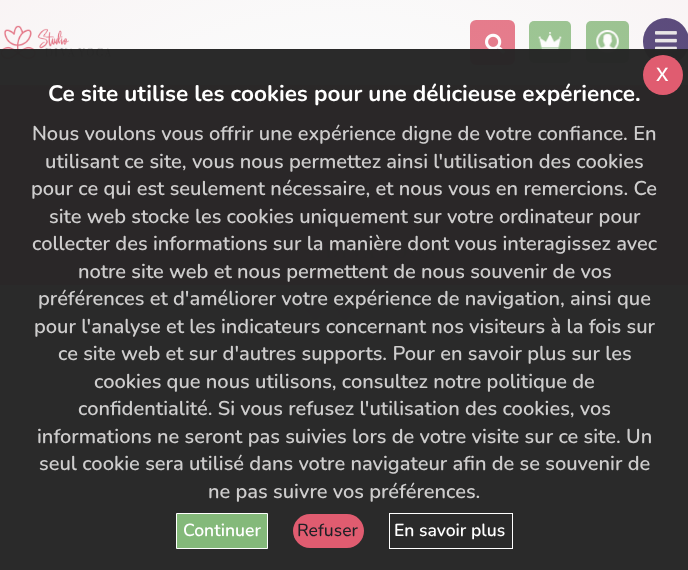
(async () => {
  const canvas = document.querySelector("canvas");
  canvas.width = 688;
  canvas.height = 570;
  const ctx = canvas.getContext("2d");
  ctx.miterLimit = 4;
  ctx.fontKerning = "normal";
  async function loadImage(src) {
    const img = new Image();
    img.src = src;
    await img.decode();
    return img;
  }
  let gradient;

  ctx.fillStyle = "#fafafa";
  ctx.fillRect(0, 0, 688, 570);
  ctx.fillStyle = "#d8546a";
  ctx.fillRect(0, 85, 688, 200);
  ctx.save();
  ctx.beginPath();
  ctx.rect(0, 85, 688, 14);
  ctx.clip();
  ctx.fillStyle = "rgba(255, 255, 255, 0.15)";
  ctx.filter = "blur(9.5px)";
  ctx.beginPath();
  ctx.rect(0, 3, 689, 85);
  ctx.fill();
  ctx.filter = "none";
  ctx.restore();
  ctx.drawImage(await loadImage("img/1.png"), 0, 25, 112, 35);
  ctx.fillStyle = "#e05c70";
  ctx.beginPath();
  ctx.roundRect(470, 20, 45, 45, 6);
  ctx.fill();
  ctx.drawImage(await loadImage("img/2.png"), 485, 33, 20, 21);
  ctx.fillStyle = "#84b97a";
  ctx.beginPath();
  ctx.roundRect(529, 21, 42, 42, 5);
  ctx.fill();
  ctx.drawImage(await loadImage("img/3.png"), 538, 32, 24, 19);
  ctx.beginPath();
  ctx.roundRect(586, 21, 43, 42, 5);
  ctx.fill();
  ctx.drawImage(await loadImage("img/4.png"), 596, 30, 23, 23);
  ctx.fillStyle = "#332360";
  ctx.beginPath();
  ctx.roundRect(643, 18, 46, 47, 23);
  ctx.fill();
  ctx.drawImage(await loadImage("img/5.png"), 655, 31, 22, 20);
  gradient = ctx.createRadialGradient(344, 344.4, 0, 344, 344.4, 487);
  gradient.addColorStop(0.2, "rgba(250, 250, 250, 0.21)");
  gradient.addColorStop(0.6, "rgba(250, 250, 250, 0.21)");
  gradient.addColorStop(1, "rgba(245, 223, 226, 0.21)");
  ctx.fillStyle = gradient;
  ctx.beginPath();
  ctx.rect(0, 0, 688, 570);
  ctx.save();
  ctx.clip();
  ctx.scale(1, 403 / 487);
  ctx.fillRect(0, 0, 688, 689);
  ctx.restore();
  ctx.drawImage(await loadImage("img/6.png"), 253, 208, 183, 54);
  gradient = ctx.createLinearGradient(304, 319, 323, 308);
  gradient.addColorStop(0, "#f5d9dd");
  gradient.addColorStop(1, "#eaced4");
  ctx.fillStyle = gradient;
  ctx.beginPath();
  ctx.arc(313, 313, 8, 0, Math.PI * 2);
  ctx.fill();
  gradient = ctx.createLinearGradient(334, 319, 353, 308);
  gradient.addColorStop(0, "#f5d9dd");
  gradient.addColorStop(1, "#eaced4");
  ctx.fillStyle = gradient;
  ctx.beginPath();
  ctx.arc(343, 313, 8, 0, Math.PI * 2);
  ctx.fill();
  ctx.fillStyle = "rgba(38, 38, 38, 0.98)";
  ctx.fillRect(0, 49, 688, 521);
  ctx.fillStyle = "#e05c70";
  ctx.beginPath();
  ctx.arc(663, 75, 20, 0, Math.PI * 2);
  ctx.fill();
  ctx.fillStyle = "#84b97a";
  ctx.beginPath();
  ctx.rect(176.5, 513.5, 91, 35);
  ctx.fill();
  ctx.strokeStyle = "#ffffff";
  ctx.stroke();
  ctx.fillStyle = "#e05c70";
  ctx.beginPath();
  ctx.roundRect(293, 514, 71, 34, 17);
  ctx.fill();
  ctx.strokeRect(389.5, 513.5, 123, 35);
  ctx.font = "25px Liberation Sans";
  ctx.fillStyle = "#ffffff";
  ctx.fillText("x", 656, 81);
  ctx.font = "bold 22.5px Nunito";
  ctx.fillText("Ce site utilise les cookies pour une délicieuse expérience.", 48, 101);
  ctx.font = "600 20px Nunito";
  ctx.fillStyle = "#cecdcd";
  for (const [text, x, y] of [
    ["Nous voulons vous offrir une expérience digne de votre confiance. En", 32, 140],
    ["utilisant ce site, vous nous permettez ainsi l'utilisation des cookies", 45, 168],
    ["pour ce qui est seulement nécessaire, et nous vous en remercions. Ce", 31, 195],
    ["site web stocke les cookies uniquement sur votre ordinateur pour", 49, 223],
    ["collecter des informations sur la manière dont vous interagissez avec", 32, 250],
    ["notre site web et nous permettent de nous souvenir de vos", 78, 278],
    ["préférences et d'améliorer votre expérience de navigation, ainsi que", 38, 305],
    ["pour l'analyse et les indicateurs concernant nos visiteurs à la fois sur", 34, 333],
    ["ce site web et sur d'autres supports. Pour en savoir plus sur les", 58, 360],
    ["cookies que nous utilisons, consultez notre politique de", 94, 388],
    ["confidentialité. Si vous refusez l'utilisation des cookies, vos", 78, 415],
    ["informations ne seront pas suivies lors de votre visite sur ce site. Un", 37, 443],
    ["seul cookie sera utilisé dans votre navigateur afin de se souvenir de", 39, 470],
    ["ne pas suivre vos préférences.", 208, 498],
  ]) {
    ctx.fillText(text, x, y);
  }
  ctx.font = "600 17.5px Nunito";
  ctx.fillStyle = "#ffffff";
  ctx.fillText("Continuer", 183, 536);
  ctx.font = "500 17.5px Nunito";
  ctx.fillStyle = "#1d2025";
  ctx.fillText("Refuser", 297, 536);
  ctx.font = "600 17.5px Nunito";
  ctx.fillStyle = "#ffffff";
  ctx.fillText("En savoir plus", 394, 536);
})();
